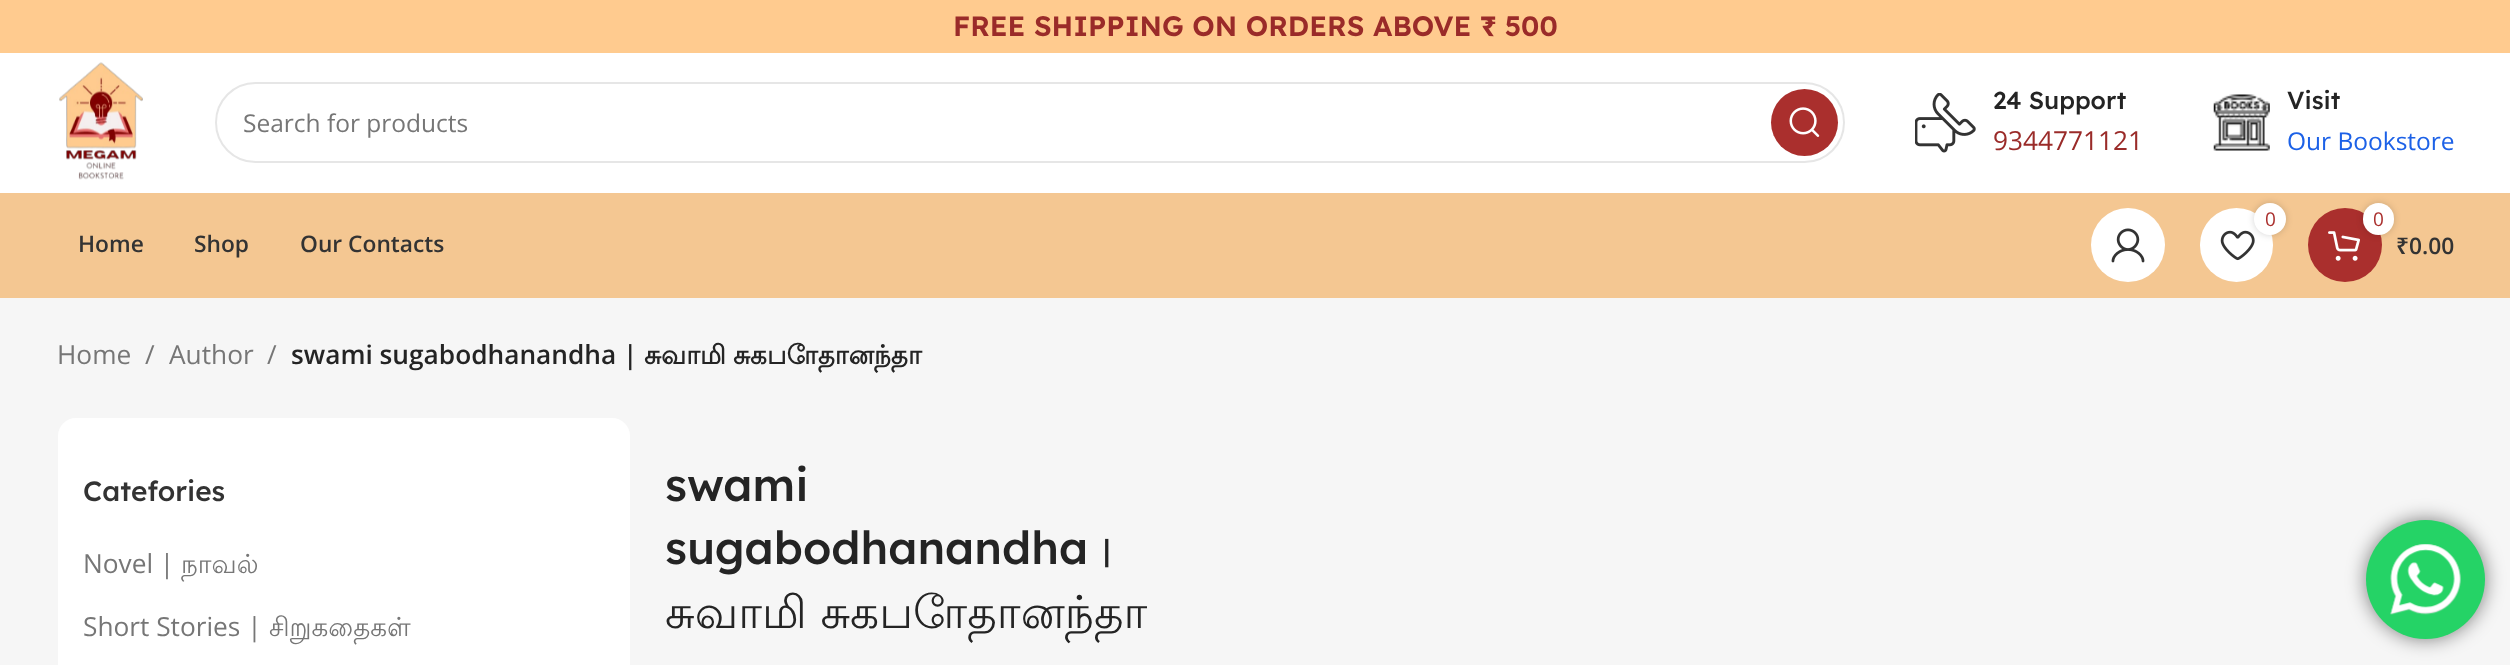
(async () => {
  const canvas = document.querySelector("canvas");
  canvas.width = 2510;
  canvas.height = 665;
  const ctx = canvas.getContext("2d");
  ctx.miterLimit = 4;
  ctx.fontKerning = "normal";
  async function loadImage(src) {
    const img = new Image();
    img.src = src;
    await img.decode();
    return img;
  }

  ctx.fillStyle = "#ffffff";
  ctx.fillRect(0, 0, 2510, 665);
  ctx.fillStyle = "#ffcb8f";
  ctx.fillRect(0, 0, 2510, 53);
  ctx.drawImage(await loadImage("img/1.png"), 59, 62, 84, 118);
  ctx.beginPath();
  ctx.roundRect(216, 83, 1628, 79, 39.5);
  ctx.strokeStyle = "#e6e6e6";
  ctx.lineWidth = 2;
  ctx.stroke();
  ctx.fillStyle = "#aa2f2d";
  ctx.beginPath();
  ctx.arc(1804.5, 122.5, 33.5, 0, Math.PI * 2);
  ctx.fill();
  ctx.drawImage(await loadImage("img/2.png"), 1789, 107, 31, 30);
  ctx.drawImage(await loadImage("img/3.png"), 1915, 93, 61, 60);
  ctx.drawImage(await loadImage("img/4.png"), 2213, 94, 57, 57);
  ctx.fillStyle = "#f4c792";
  ctx.fillRect(0, 193, 2510, 105);
  ctx.fillStyle = "#ffffff";
  ctx.beginPath();
  ctx.arc(2128, 245, 37, 0, Math.PI * 2);
  ctx.fill();
  ctx.drawImage(await loadImage("img/5.png"), 2111, 228, 34, 35);
  ctx.beginPath();
  ctx.roundRect(2200, 208, 73, 74, 36.5);
  ctx.fill();
  ctx.drawImage(await loadImage("img/6.png"), 2220, 230, 35, 31);
  ctx.fillStyle = "rgba(0, 0, 0, 0.17)";
  ctx.filter = "blur(3.5px)";
  ctx.beginPath();
  ctx.roundRect(2254, 203, 32, 32, 16);
  ctx.fill();
  ctx.filter = "none";
  ctx.fillStyle = "#ffffff";
  ctx.beginPath();
  ctx.arc(2270, 219, 16, 0, Math.PI * 2);
  ctx.fill();
  ctx.fillStyle = "#aa2f2d";
  ctx.beginPath();
  ctx.arc(2345, 245, 37, 0, Math.PI * 2);
  ctx.fill();
  ctx.drawImage(await loadImage("img/7.png"), 2328, 231, 32, 30);
  ctx.fillStyle = "rgba(0, 0, 0, 0.17)";
  ctx.filter = "blur(3.5px)";
  ctx.beginPath();
  ctx.roundRect(2363, 203, 31, 32, 15.5);
  ctx.fill();
  ctx.filter = "none";
  ctx.fillStyle = "#ffffff";
  ctx.beginPath();
  ctx.roundRect(2363, 203, 31, 32, 15.5);
  ctx.fill();
  ctx.fillStyle = "#f6f6f6";
  ctx.fillRect(0, 298, 2510, 367);
  ctx.fillStyle = "#ffffff";
  ctx.beginPath();
  ctx.roundRect(58, 418, 572, 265, 18);
  ctx.fill();
  ctx.fillStyle = "rgba(0, 0, 0, 0.5)";
  ctx.filter = "blur(9.5px)";
  ctx.beginPath();
  ctx.roundRect(2366, 520, 119, 119, 59.5);
  ctx.fill();
  ctx.filter = "none";
  ctx.fillStyle = "#25d366";
  ctx.beginPath();
  ctx.arc(2425.5, 579.5, 59.5, 0, Math.PI * 2);
  ctx.fill();
  ctx.drawImage(await loadImage("img/8.png"), 2390, 544, 71, 71);
  ctx.font = "600 28px Lexend Deca";
  ctx.fillStyle = "#9a2b29";
  ctx.fillText("FREE SHIPPING ON ORDERS ABOVE ₹ 500", 953, 36);
  ctx.font = "24.5px Open Sans";
  ctx.fillStyle = "#767676";
  ctx.fillText("Search for products", 243, 132);
  ctx.font = "500 24.5px Lexend Deca";
  ctx.fillStyle = "#242424";
  ctx.fillText("24 Support", 1993, 109);
  ctx.font = "26.25px Open Sans";
  ctx.fillStyle = "#9a2b29";
  ctx.fillText("9344771121", 1993, 150);
  ctx.font = "500 24.5px Lexend Deca";
  ctx.fillStyle = "#242424";
  ctx.fillText("Visit", 2287, 109);
  ctx.font = "24.5px Open Sans";
  ctx.fillStyle = "#1c61e7";
  ctx.fillText("Our Bookstore", 2287, 150);
  ctx.font = "600 22.75px Open Sans";
  ctx.fillStyle = "#333333";
  for (const [text, x, y] of [
    ["Home", 78, 252],
    ["Shop", 194, 252],
    ["Our Contacts", 300, 252],
  ]) {
    ctx.fillText(text, x, y);
  }
  ctx.font = "19px Open Sans";
  ctx.fillStyle = "#aa2f2d";
  ctx.fillText("0", 2265, 226);
  ctx.fillText("0", 2373, 226);
  ctx.font = "600 22.75px Noto Sans";
  ctx.fillStyle = "#333333";
  ctx.fillText("₹", 2396, 254);
  ctx.font = "600 22.75px Open Sans";
  ctx.fillText("0.00", 2409, 254);
  ctx.font = "26.25px Open Sans";
  ctx.fillStyle = "#767676";
  for (const [text, x, y] of [
    ["Home", 57, 364],
    ["/", 145, 364],
    ["Author", 169, 364],
    ["/", 267, 364],
  ]) {
    ctx.fillText(text, x, y);
  }
  ctx.font = "600 26.25px Open Sans";
  ctx.fillStyle = "#242424";
  ctx.fillText("swami sugabodhanandha |", 291, 364);
  ctx.font = "bold 26.25px Lohit Tamil";
  ctx.fillText("சுவாமி", 644, 364);
  ctx.fillText("சுகபோதானந்தா", 733, 364);
  ctx.font = "500 28px Lexend Deca";
  ctx.fillStyle = "#333333";
  ctx.fillText("Catefories", 83, 501);
  ctx.font = "26.25px Open Sans";
  ctx.fillStyle = "#767676";
  ctx.fillText("Novel |", 83, 573);
  ctx.font = "26.25px Lohit Tamil";
  ctx.fillText("நாவல்", 181, 573);
  ctx.font = "26.25px Open Sans";
  ctx.fillText("Short Stories |", 83, 636);
  ctx.font = "26.25px Lohit Tamil";
  ctx.fillText("சிறுகதைகள்", 269, 636);
  ctx.font = "500 45.5px Lexend Deca";
  ctx.fillStyle = "#242424";
  ctx.fillText("swami", 665, 501);
  ctx.fillText("sugabodhanandha", 665, 564);
  ctx.font = "45.5px Lohit Tamil";
  ctx.fillText("|", 1101, 564);
  ctx.fillText("சுவாமி சுகபோதானந்தா", 665, 628);
})();
